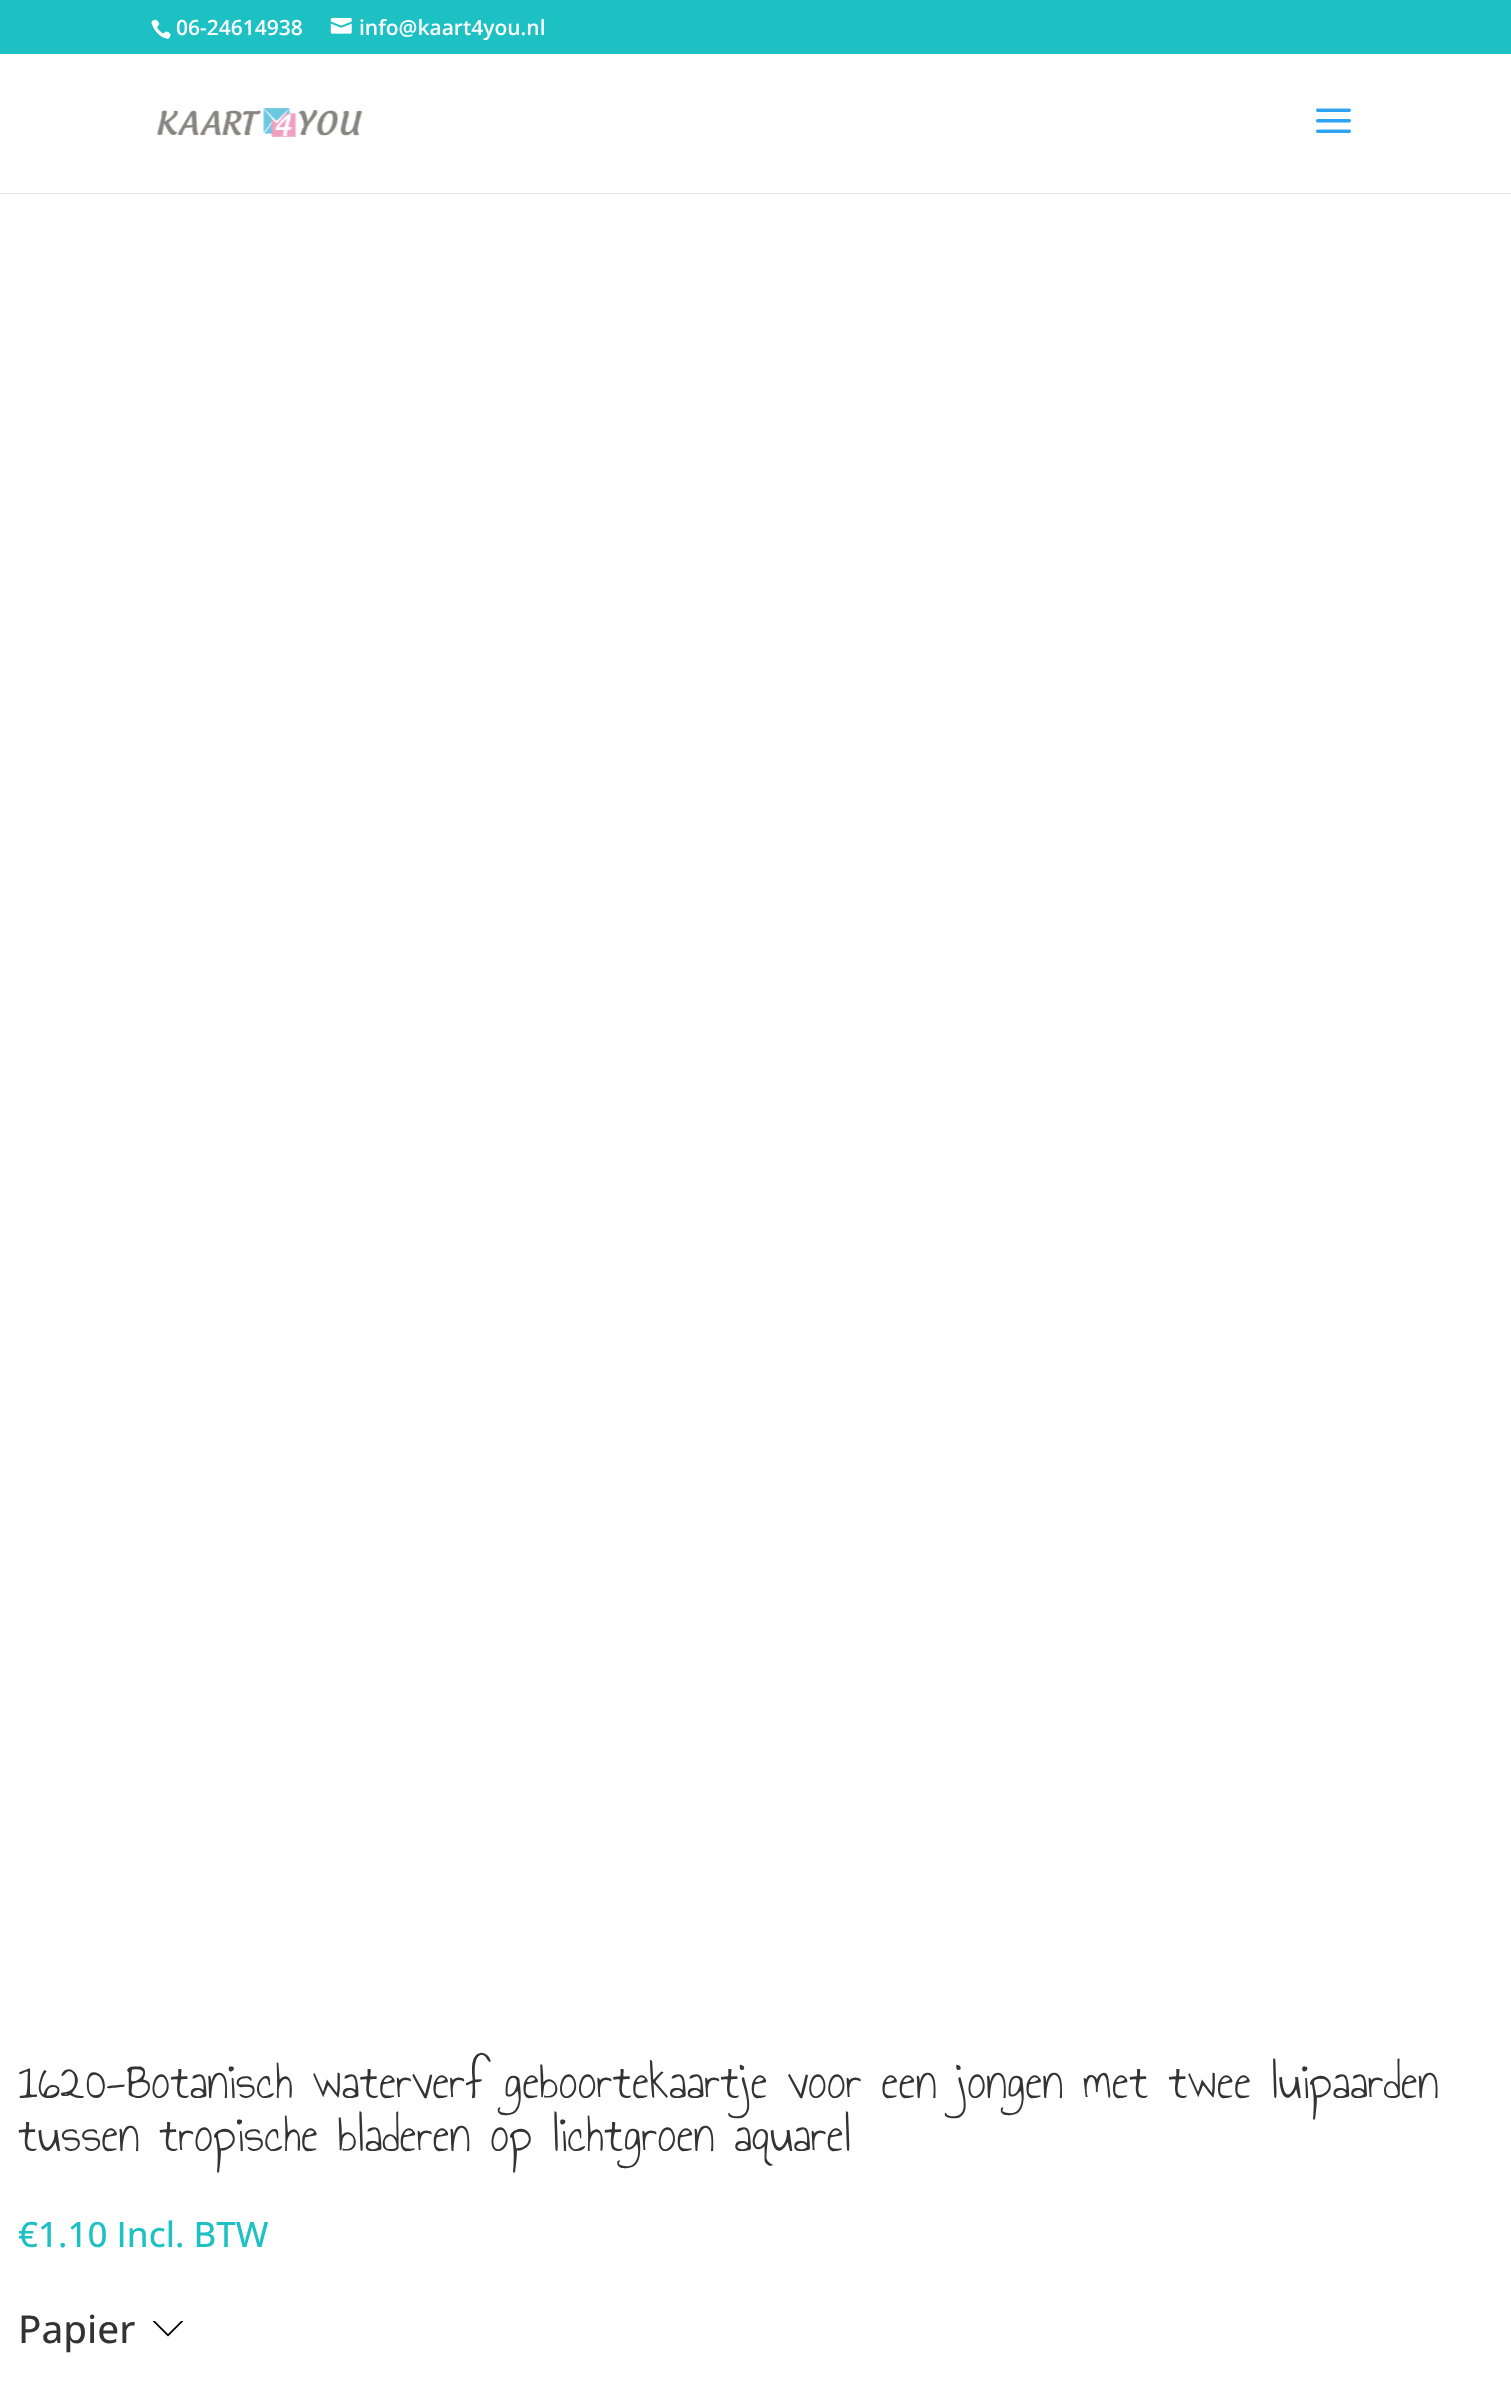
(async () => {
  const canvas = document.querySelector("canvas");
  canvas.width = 1511;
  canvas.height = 2399;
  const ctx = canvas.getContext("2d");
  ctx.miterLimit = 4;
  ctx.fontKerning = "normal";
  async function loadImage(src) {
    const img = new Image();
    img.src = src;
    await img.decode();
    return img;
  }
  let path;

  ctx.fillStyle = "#ffffff";
  ctx.fillRect(0, 0, 1511, 2399);
  ctx.fillStyle = "#1dc1c4";
  ctx.fillRect(0, 0, 1511, 54);
  ctx.drawImage(await loadImage("img/1.png"), 151, 19, 20, 20);
  ctx.drawImage(await loadImage("img/2.png"), 330, 17, 22, 17);
  ctx.fillStyle = "#e6e6e6";
  ctx.fillRect(0, 193, 1511, 1);
  ctx.drawImage(await loadImage("img/3.png"), 157, 108, 206, 29);
  ctx.drawImage(await loadImage("img/4.png"), 1316, 108, 35, 25);
  ctx.fillStyle = "#000000";
  path = new Path2D("M183.5 2321L168 2336.5V2334L181 2321ZM168 2336.5L152.5 2321H155L168 2334Z");
  ctx.fill(path);
  ctx.font = "600 21px Open Sans";
  ctx.fillStyle = "#ffffff";
  ctx.fillText("06-24614938", 176, 35);
  ctx.fillText("info@kaart4you.nl", 359, 35);
  ctx.font = "52.5px Annie Use Your Telescope";
  ctx.fillStyle = "#333333";
  ctx.fillText("1620-Botanisch waterverf geboortekaartje voor een jongen met twee luipaarden", 18, 2098);
  ctx.fillText("tussen tropische bladeren op lichtgroen aquarel", 18, 2151);
  ctx.font = "500 35px Open Sans";
  ctx.fillStyle = "#1dc1c4";
  ctx.fillText("€1.10 Incl. BTW", 18, 2247);
  ctx.font = "500 38.5px Open Sans";
  ctx.fillStyle = "#333333";
  ctx.fillText("Papier", 18, 2343);
})();
